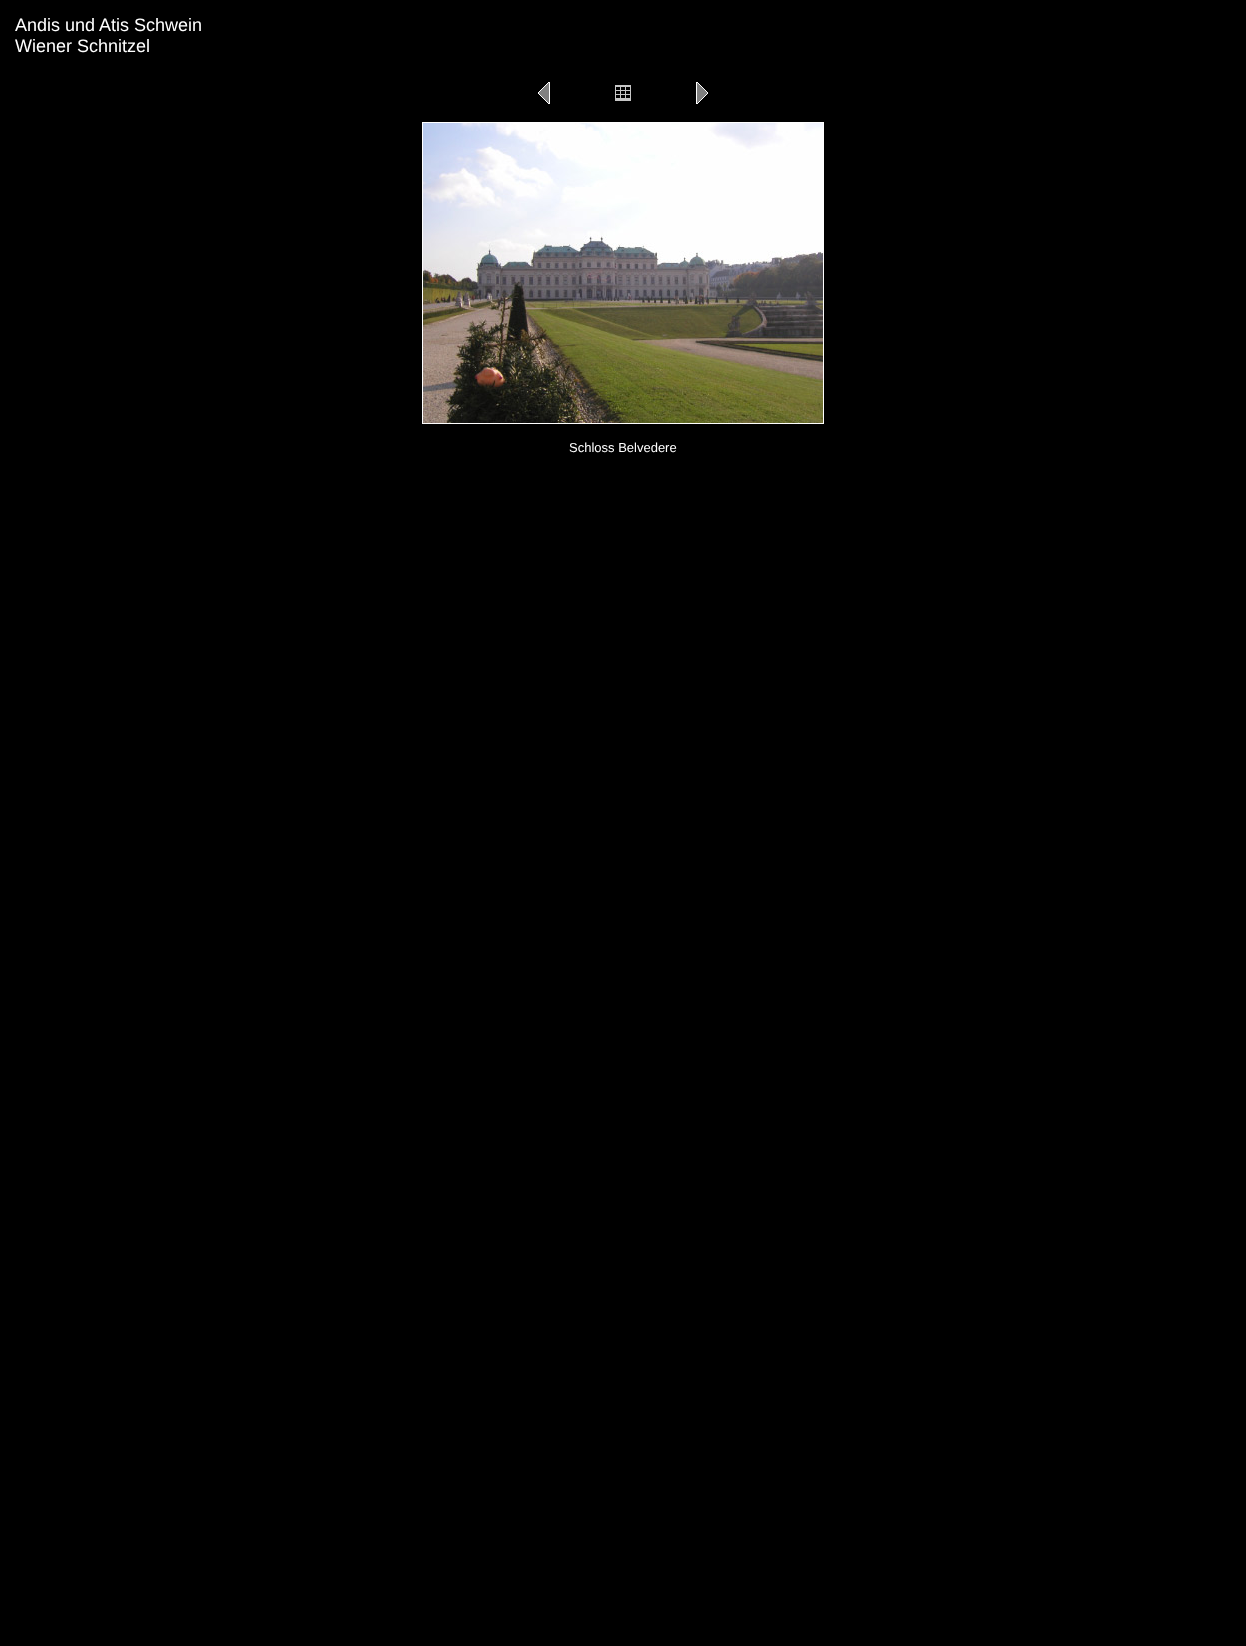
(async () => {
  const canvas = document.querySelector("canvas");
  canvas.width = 1246;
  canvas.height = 1646;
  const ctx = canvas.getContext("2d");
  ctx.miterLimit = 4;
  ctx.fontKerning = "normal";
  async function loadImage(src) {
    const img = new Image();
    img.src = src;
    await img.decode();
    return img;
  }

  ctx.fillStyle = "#000000";
  ctx.fillRect(0, 0, 1246, 1646);
  ctx.drawImage(await loadImage("img/1.png"), 538, 82, 12, 22);
  ctx.drawImage(await loadImage("img/2.png"), 615, 85, 16, 16);
  ctx.drawImage(await loadImage("img/3.png"), 696, 82, 12, 22);
  ctx.strokeStyle = "#ffffff";
  ctx.strokeRect(422.5, 122.5, 401, 301);
  ctx.drawImage(await loadImage("img/4.png"), 423, 123, 400, 300);
  ctx.font = "18px Liberation Sans";
  ctx.fillStyle = "#ffffff";
  ctx.fillText("Andis und Atis Schwein", 15, 31);
  ctx.fillText("Wiener Schnitzel", 15, 52);
  ctx.font = "13px Liberation Sans";
  ctx.fillText("Schloss Belvedere", 569, 452);
})();
